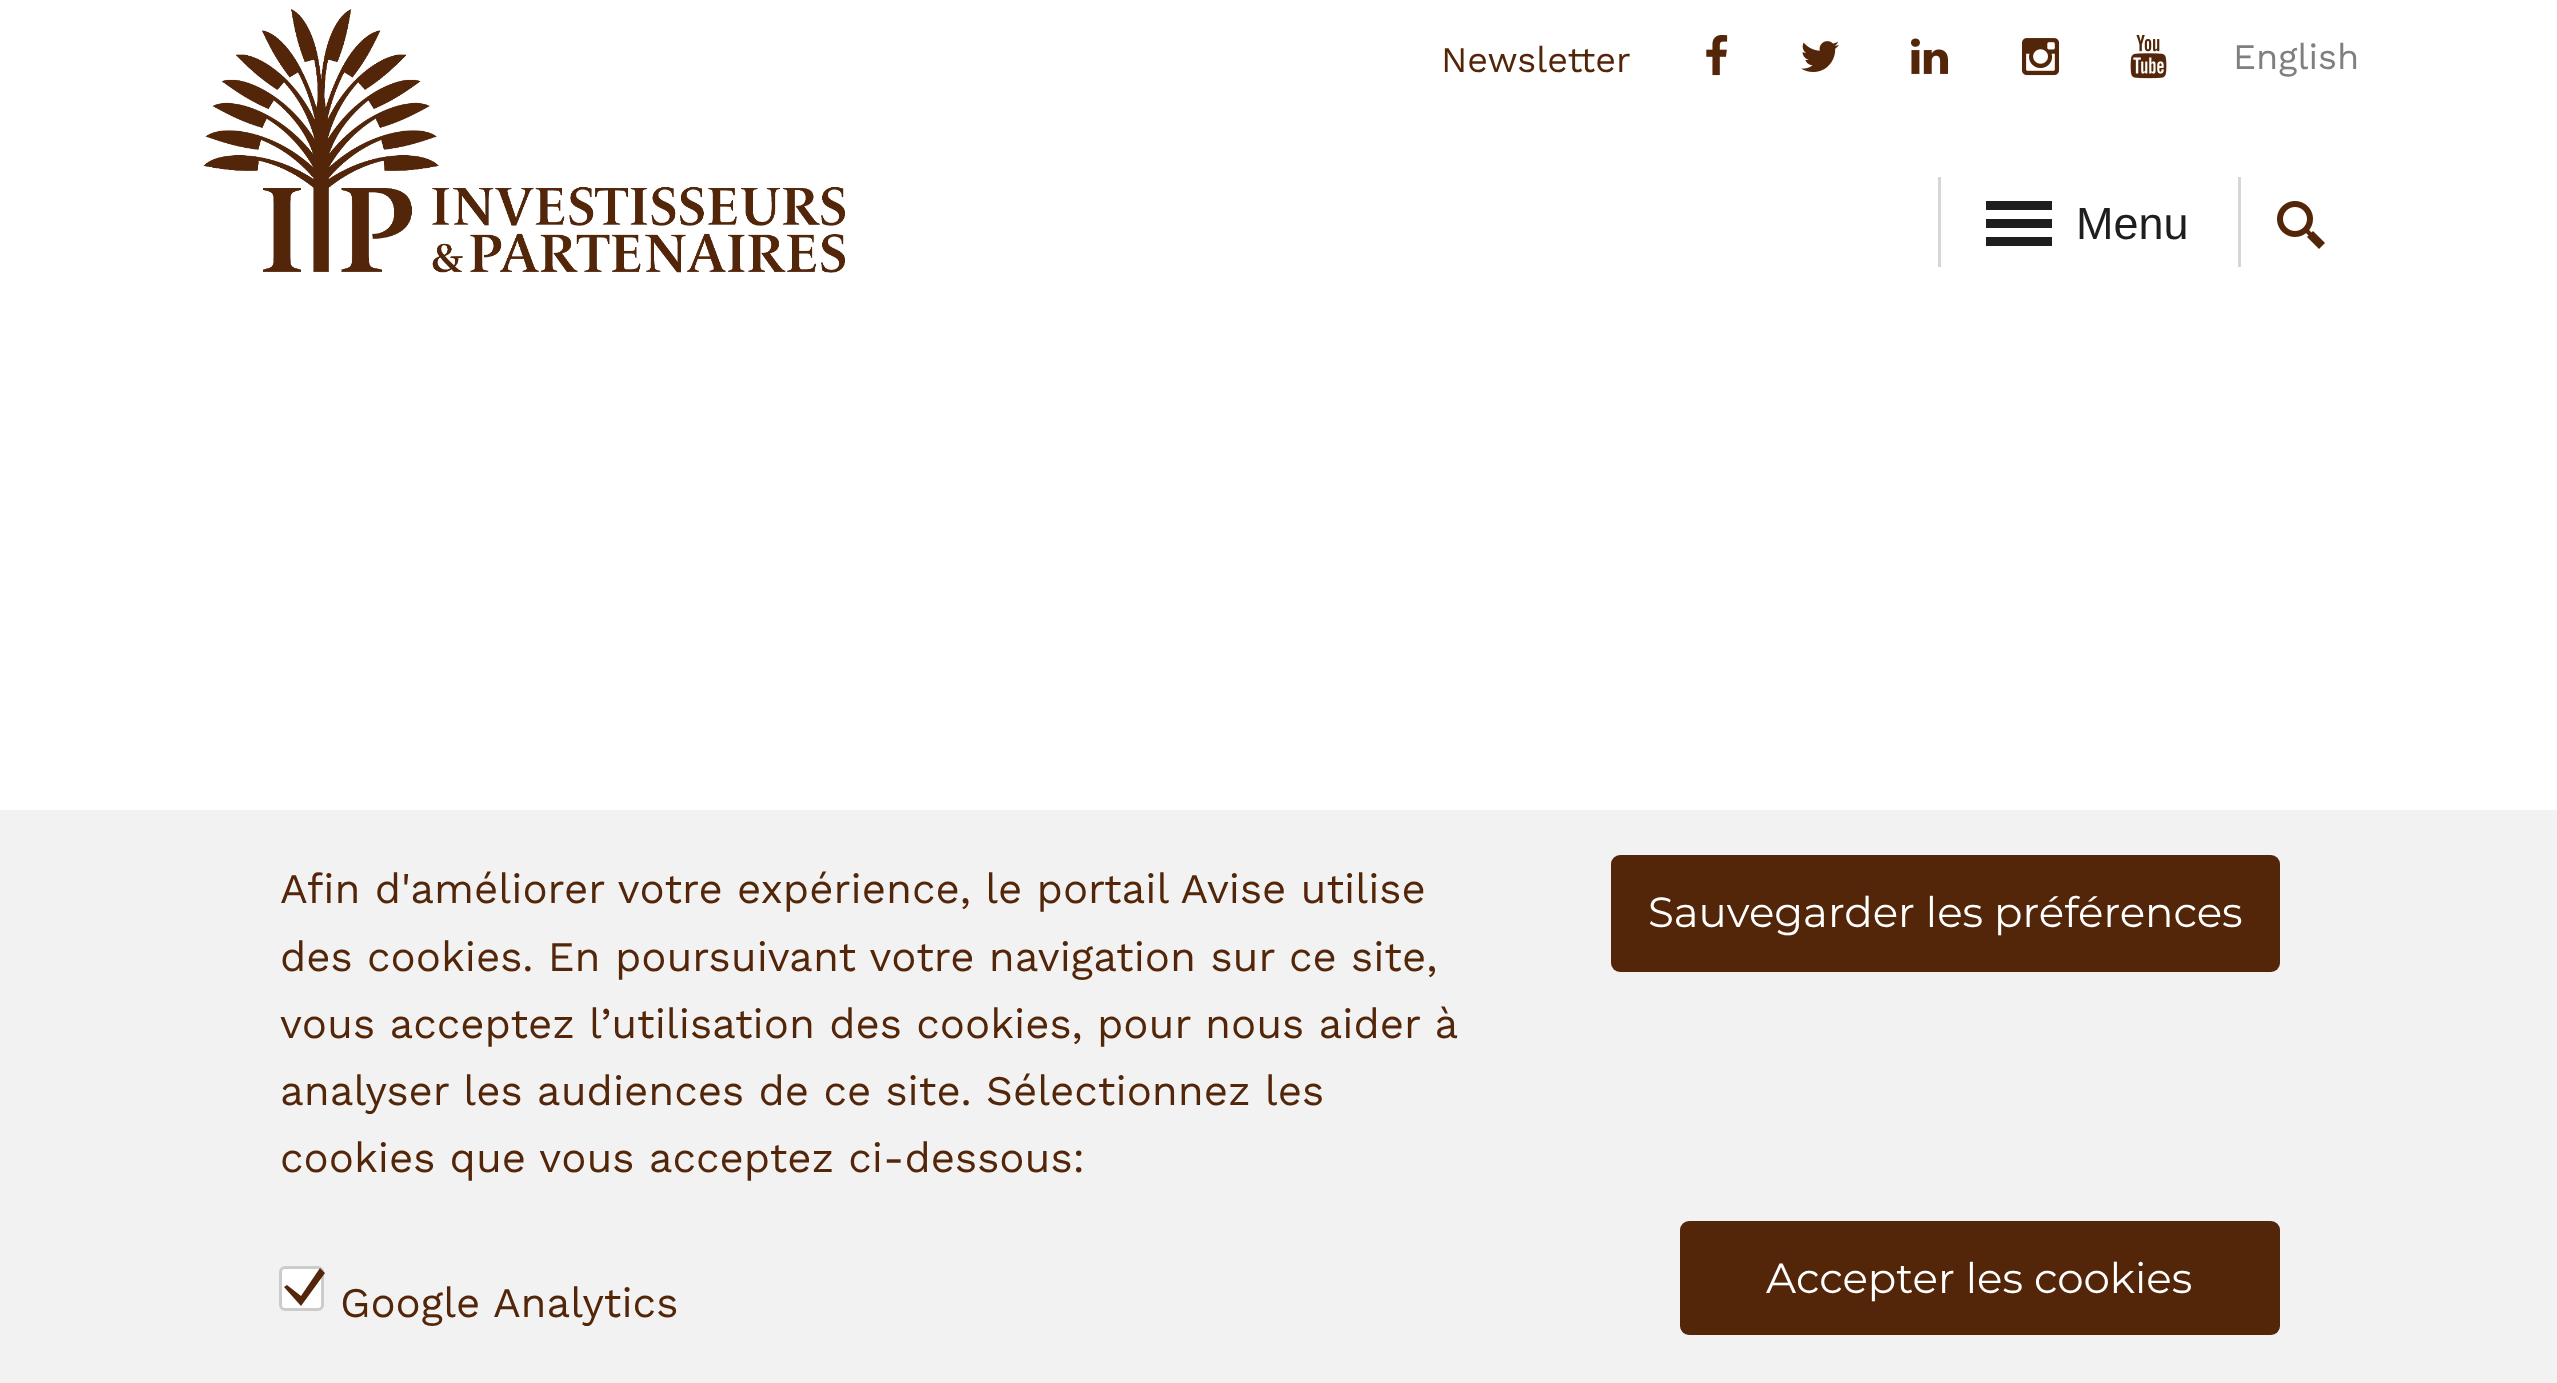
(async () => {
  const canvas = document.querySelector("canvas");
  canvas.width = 2557;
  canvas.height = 1383;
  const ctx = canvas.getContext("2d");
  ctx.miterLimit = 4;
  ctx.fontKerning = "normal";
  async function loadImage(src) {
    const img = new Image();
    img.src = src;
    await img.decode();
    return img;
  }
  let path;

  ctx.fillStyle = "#ffffff";
  ctx.fillRect(0, 0, 2557, 1383);
  ctx.drawImage(await loadImage("img/1.png"), 1706, 35, 22, 41);
  ctx.drawImage(await loadImage("img/2.png"), 1801, 41, 38, 31);
  ctx.drawImage(await loadImage("img/3.png"), 1911, 38, 38, 36);
  ctx.drawImage(await loadImage("img/4.png"), 2022, 38, 38, 38);
  ctx.drawImage(await loadImage("img/5.png"), 2130, 35, 37, 44);
  ctx.drawImage(await loadImage("img/6.png"), 203, 9, 642, 264);
  for (const [x, y, w, h, color] of [
    [1938, 177, 3, 90, "#d6d6d6"],
    [1986, 201, 66, 9, "#1e1e1e"],
    [1986, 219, 66, 9, "#1e1e1e"],
    [1986, 237, 66, 9, "#1e1e1e"],
    [2238, 177, 3, 90, "#d6d6d6"],
  ]) {
    ctx.fillStyle = color;
    ctx.fillRect(x, y, w, h);
  }
  ctx.drawImage(await loadImage("img/7.png"), 2277, 201, 48, 48);
  ctx.fillStyle = "#f2f2f2";
  ctx.fillRect(0, 810, 2557, 573);
  ctx.fillStyle = "#532609";
  ctx.beginPath();
  ctx.roundRect(1611, 855, 669, 117, 9);
  ctx.fill();
  ctx.fillStyle = "#ffffff";
  ctx.beginPath();
  ctx.roundRect(280.5, 1267.5, 42, 42, 4.5);
  ctx.fill();
  ctx.strokeStyle = "#cccccc";
  ctx.lineWidth = 3;
  ctx.stroke();
  ctx.fillStyle = "#532609";
  path = new Path2D("M301 1296L287 1285L284 1287L301 1306L325 1273L320 1268Z");
  ctx.fill(path);
  ctx.beginPath();
  ctx.roundRect(1680, 1221, 600, 114, 9);
  ctx.fill();
  ctx.font = "36px Work Sans";
  ctx.fillText("Newsletter", 1441, 72);
  ctx.fillStyle = "#7f7f7f";
  ctx.fillText("English", 2233, 69);
  ctx.font = "45px Liberation Sans";
  ctx.fillStyle = "#1e1e1e";
  ctx.fillText("Menu", 2076, 239);
  ctx.font = "42px Work Sans";
  ctx.fillStyle = "#532609";
  for (const [text, x, y] of [
    ["Afin d'améliorer votre expérience, le portail Avise utilise", 280, 903],
    ["des cookies. En poursuivant votre navigation sur ce site,", 280, 971],
    ["vous acceptez l’utilisation des cookies, pour nous aider à", 280, 1038],
    ["analyser les audiences de ce site. Sélectionnez les", 280, 1105],
    ["cookies que vous acceptez ci-dessous:", 280, 1172],
  ]) {
    ctx.fillText(text, x, y);
  }
  ctx.font = "42px Montserrat";
  ctx.fillStyle = "#ffffff";
  ctx.fillText("Sauvegarder les préférences", 1648, 927);
  ctx.font = "42px Work Sans";
  ctx.fillStyle = "#532609";
  ctx.fillText("Google Analytics", 340, 1317);
  ctx.font = "42px Montserrat";
  ctx.fillStyle = "#ffffff";
  ctx.fillText("Accepter les cookies", 1766, 1293);
})();
